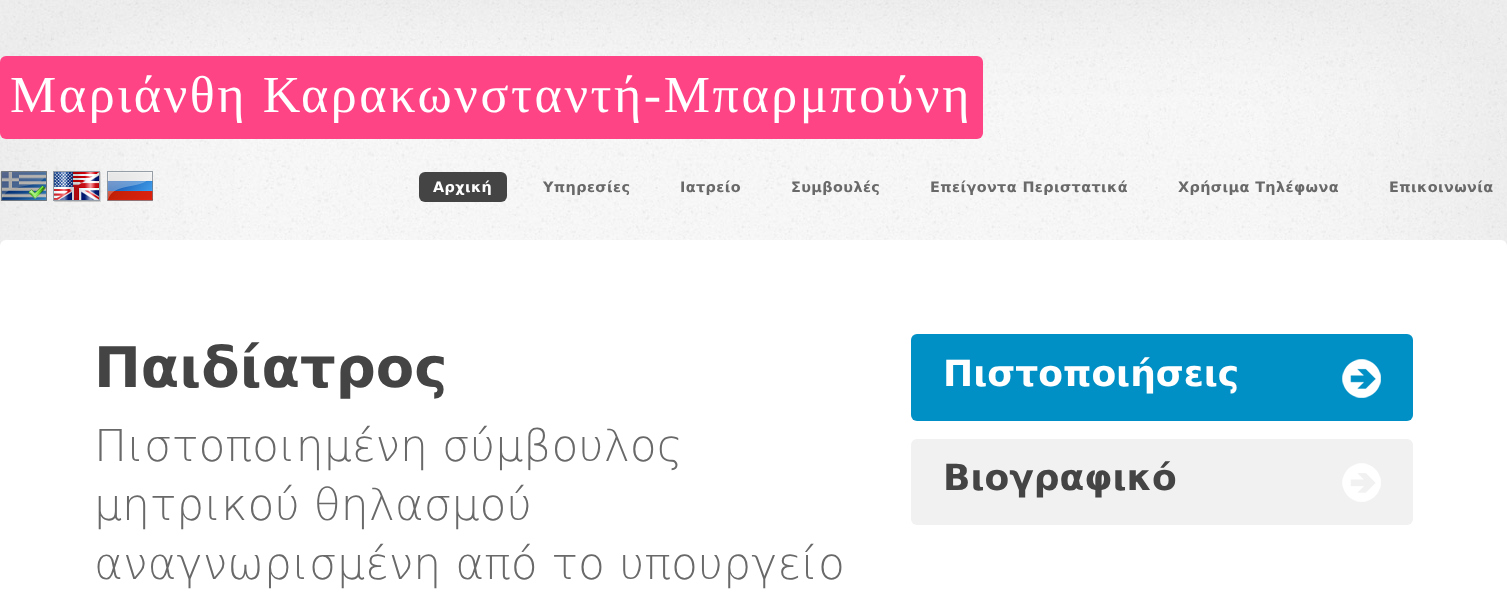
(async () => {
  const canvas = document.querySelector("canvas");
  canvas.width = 1507;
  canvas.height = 598;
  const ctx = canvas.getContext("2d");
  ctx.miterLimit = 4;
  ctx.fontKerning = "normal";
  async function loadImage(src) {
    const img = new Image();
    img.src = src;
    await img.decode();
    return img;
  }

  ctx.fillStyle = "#ffffff";
  ctx.fillRect(0, 0, 1507, 598);
  ctx.drawImage(await loadImage("img/1.png"), 0, 0, 1507, 246);
  ctx.drawImage(await loadImage("img/2.png"), 0, 0, 1507, 246);
  ctx.fillStyle = "#ff4486";
  ctx.beginPath();
  ctx.roundRect(0, 56, 983, 83, 6);
  ctx.fill();
  ctx.drawImage(await loadImage("img/3.png"), 0, 171, 47, 30);
  ctx.drawImage(await loadImage("img/4.png"), 53, 171, 48, 31);
  ctx.drawImage(await loadImage("img/5.png"), 107, 171, 46, 30);
  ctx.fillStyle = "#444444";
  ctx.beginPath();
  ctx.roundRect(419, 172, 88, 30, 6);
  ctx.fill();
  ctx.fillStyle = "#ffffff";
  ctx.beginPath();
  ctx.roundRect(0, 240, 1507, 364, 6);
  ctx.fill();
  ctx.fillStyle = "#0090c5";
  ctx.beginPath();
  ctx.roundRect(911, 334, 502, 87, 6);
  ctx.fill();
  ctx.drawImage(await loadImage("img/6.png"), 1342, 359, 39, 39);
  ctx.fillStyle = "#f1f1f1";
  ctx.beginPath();
  ctx.roundRect(911, 439, 502, 86, 6);
  ctx.fill();
  ctx.drawImage(await loadImage("img/7.png"), 1342, 463, 39, 39);
  ctx.letterSpacing = "2.6px";
  ctx.font = "52px Liberation Serif";
  ctx.fillStyle = "#ffffff";
  ctx.fillText("Μαριάνθη Καρακωνσταντή-Μπαρμπούνη", 10, 112);
  ctx.letterSpacing = "0.4px";
  ctx.font = "bold 14.4px DejaVu Sans";
  ctx.fillText("Αρχική", 433, 192);
  ctx.fillStyle = "#696969";
  for (const [text, x, y] of [
    ["Υπηρεσίες", 543, 192],
    ["Ιατρείο", 680, 192],
    ["Συμβουλές", 791, 192],
    ["Επείγοντα Περιστατικά", 930, 192],
    ["Χρήσιμα Τηλέφωνα", 1178, 192],
    ["Επικοινωνία", 1389, 192],
  ]) {
    ctx.fillText(text, x, y);
  }
  ctx.letterSpacing = "0px";
  ctx.font = "bold 56px DejaVu Sans";
  ctx.fillStyle = "#444444";
  ctx.fillText("Παιδίατρος", 94, 387);
  ctx.font = "200 44px DejaVu Sans";
  ctx.fillStyle = "#696969";
  for (const [text, x, y] of [
    ["Πιστοποιημένη σύμβουλος", 94, 461],
    ["μητρικού θηλασμού", 94, 520],
    ["αναγνωρισμένη από το υπουργείο", 94, 579],
  ]) {
    ctx.fillText(text, x, y);
  }
  ctx.font = "bold 36px DejaVu Sans";
  ctx.fillStyle = "#ffffff";
  ctx.fillText("Πιστοποιήσεις", 943, 386);
  ctx.fillStyle = "#444444";
  ctx.fillText("Βιογραφικό", 943, 490);
})();
